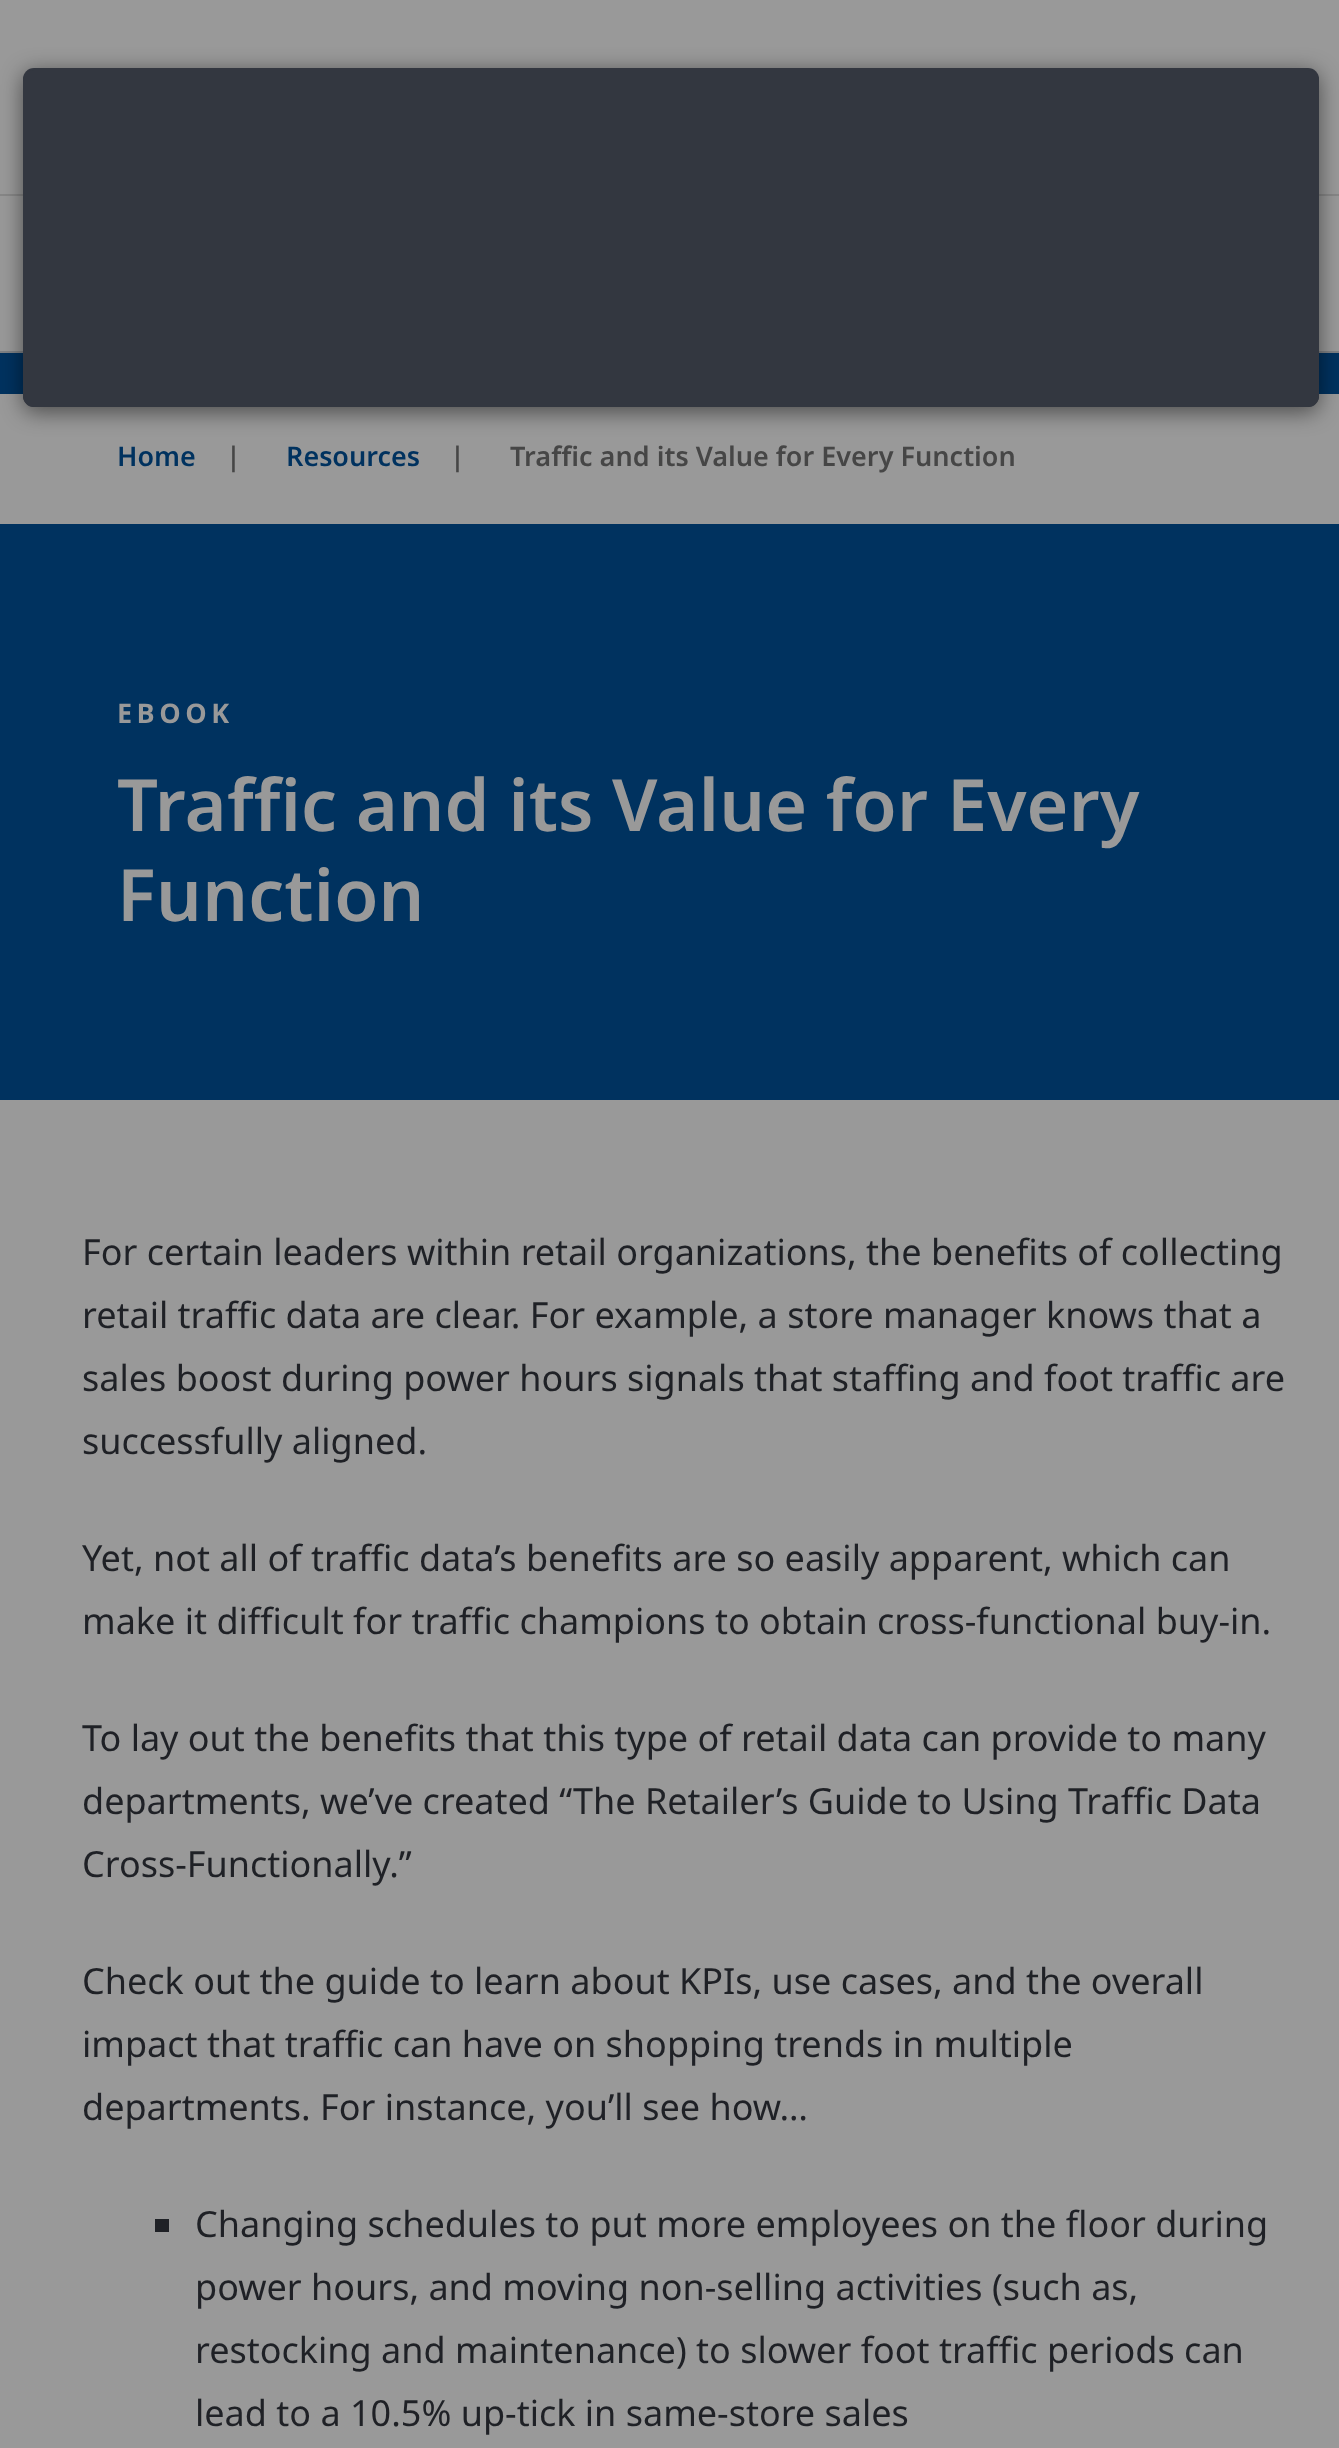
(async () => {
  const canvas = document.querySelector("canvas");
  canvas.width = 1339;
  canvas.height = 2448;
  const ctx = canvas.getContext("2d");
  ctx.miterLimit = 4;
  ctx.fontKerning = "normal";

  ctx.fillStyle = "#999999";
  ctx.fillRect(0, 0, 1339, 2448);
  for (const [x, y, w, h, color] of [
    [0, 353, 1339, 41, "#00325f"],
    [0, 194, 1339, 2, "#878787"],
    [0, 351, 1339, 2, "#7e8084"],
  ]) {
    ctx.fillStyle = color;
    ctx.fillRect(x, y, w, h);
  }
  ctx.fillStyle = "rgba(0, 0, 0, 0.5)";
  ctx.filter = "blur(11px)";
  ctx.beginPath();
  ctx.roundRect(23, 72, 1296, 340, 11);
  ctx.fill();
  ctx.filter = "none";
  ctx.fillStyle = "#333740";
  ctx.beginPath();
  ctx.roundRect(23, 68, 1296, 339, 11);
  ctx.fill();
  ctx.beginPath();
  ctx.roundRect(23, 70, 1296, 337, 11);
  ctx.fill();
  ctx.fillStyle = "#00325f";
  ctx.fillRect(0, 524, 1339, 576);
  ctx.fillStyle = "#1f2126";
  ctx.fillRect(155, 2219, 14, 13);
  ctx.font = "600 27px Noto Sans";
  ctx.fillStyle = "#00325f";
  ctx.fillText("Home", 117, 466);
  ctx.fillStyle = "#464646";
  ctx.fillText("|", 226, 466);
  ctx.fillStyle = "#00325f";
  ctx.fillText("Resources", 286, 466);
  ctx.fillStyle = "#464646";
  ctx.fillText("|", 450, 466);
  ctx.fillText("Traffic and its Value for Every Function", 510, 466);
  ctx.letterSpacing = "4.5px";
  ctx.font = "bold 27px Noto Sans";
  ctx.fillStyle = "#999999";
  ctx.fillText("EBOOK", 117, 723);
  ctx.letterSpacing = "0px";
  ctx.font = "600 72px Noto Sans";
  ctx.fillText("Traffic and its Value for Every", 117, 831);
  ctx.fillText("Function", 117, 921);
  ctx.font = "36px Noto Sans";
  ctx.fillStyle = "#1f2126";
  for (const [text, x, y] of [
    ["For certain leaders within retail organizations, the benefits of collecting", 82, 1265],
    ["retail traffic data are clear. For example, a store manager knows that a", 82, 1328],
    ["sales boost during power hours signals that staffing and foot traffic are", 82, 1391],
    ["successfully aligned.", 82, 1454],
    ["Yet, not all of traffic data’s benefits are so easily apparent, which can", 82, 1571],
    ["make it difficult for traffic champions to obtain cross-functional buy-in.", 82, 1634],
    ["To lay out the benefits that this type of retail data can provide to many", 82, 1751],
    ["departments, we’ve created “The Retailer’s Guide to Using Traffic Data", 82, 1814],
    ["Cross-Functionally.”", 82, 1877],
    ["Check out the guide to learn about KPIs, use cases, and the overall", 82, 1994],
    ["impact that traffic can have on shopping trends in multiple", 82, 2057],
    ["departments. For instance, you’ll see how…", 82, 2120],
    ["Changing schedules to put more employees on the floor during", 195, 2237],
    ["power hours, and moving non-selling activities (such as,", 195, 2300],
    ["restocking and maintenance) to slower foot traffic periods can", 195, 2363],
    ["lead to a 10.5% up-tick in same-store sales", 195, 2426],
  ]) {
    ctx.fillText(text, x, y);
  }
})();
